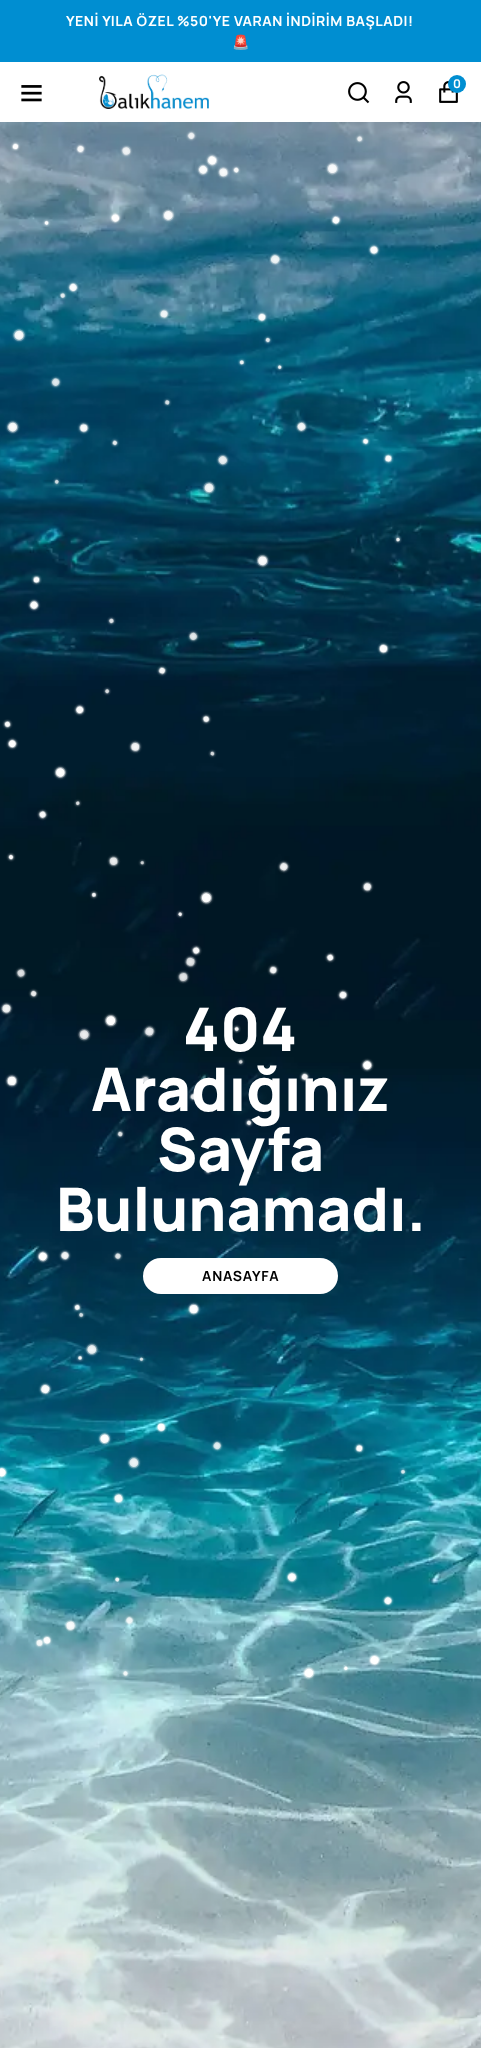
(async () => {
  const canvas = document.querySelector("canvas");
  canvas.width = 481;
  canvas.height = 2048;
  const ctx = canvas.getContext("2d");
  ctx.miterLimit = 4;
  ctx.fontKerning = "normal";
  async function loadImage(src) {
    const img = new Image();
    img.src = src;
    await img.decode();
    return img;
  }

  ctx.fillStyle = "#ffffff";
  ctx.fillRect(0, 0, 481, 2048);
  ctx.fillStyle = "#008ed1";
  ctx.fillRect(0, 0, 481, 62);
  ctx.drawImage(await loadImage("img/1.png"), 99, 74, 110, 35);
  ctx.drawImage(await loadImage("img/2.png"), 348, 82, 22, 22);
  ctx.drawImage(await loadImage("img/3.png"), 395, 81, 17, 22);
  ctx.drawImage(await loadImage("img/4.png"), 439, 81, 19, 22);
  ctx.beginPath();
  ctx.arc(457, 84, 9, 0, Math.PI * 2);
  ctx.fill();
  ctx.drawImage(await loadImage("img/5.png"), 21, 85, 21, 17);
  ctx.drawImage(await loadImage("img/6.png"), 0, 122, 481, 1926);
  ctx.fillStyle = "#ffffff";
  ctx.beginPath();
  ctx.roundRect(143, 1258, 195, 36, 18);
  ctx.fill();
  ctx.letterSpacing = "0.55px";
  ctx.font = "bold 14px Manrope";
  ctx.fillText("YENİ YILA ÖZEL %50'YE VARAN İNDİRİM BAŞLADI!", 66, 26);
  ctx.font = "bold 14px Noto Color Emoji";
  ctx.fillText("🚨", 232, 47);
  ctx.letterSpacing = "0px";
  ctx.font = "bold 12px Manrope";
  ctx.fillText("0", 453, 88);
  ctx.font = "800 60px Manrope";
  for (const [text, x, y] of [
    ["404", 183, 1051],
    ["Aradığınız", 91, 1111],
    ["Sayfa", 157, 1171],
    ["Bulunamadı.", 56, 1231],
  ]) {
    ctx.fillText(text, x, y);
  }
  ctx.letterSpacing = "0.75px";
  ctx.font = "bold 14px Manrope";
  ctx.fillStyle = "#000000";
  ctx.fillText("ANASAYFA", 202, 1281);
  ctx.drawImage(await loadImage("img/7.png"), 0, 130, 407, 1550);
})();
